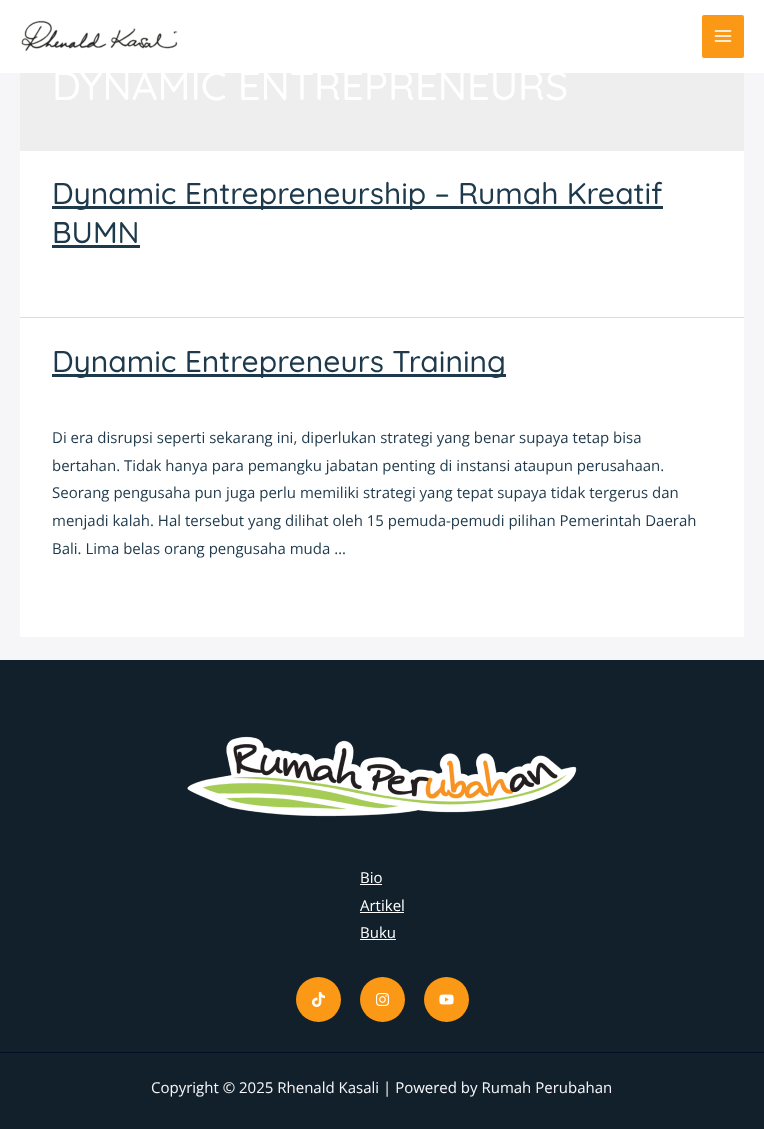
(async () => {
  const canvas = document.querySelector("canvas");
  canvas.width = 764;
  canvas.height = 1129;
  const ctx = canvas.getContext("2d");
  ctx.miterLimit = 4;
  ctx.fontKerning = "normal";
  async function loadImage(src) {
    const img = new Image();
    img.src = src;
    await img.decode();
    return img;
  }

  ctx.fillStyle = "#f6f6f9";
  ctx.fillRect(0, 0, 764, 1129);
  ctx.fillStyle = "#ffffff";
  ctx.fillRect(0, 0, 764, 73);
  ctx.drawImage(await loadImage("img/1.png"), 21, 20, 157, 31);
  ctx.fillStyle = "#fb9917";
  ctx.beginPath();
  ctx.roundRect(702, 15, 42, 43, 2);
  ctx.fill();
  ctx.drawImage(await loadImage("img/2.png"), 714, 30, 18, 12);
  for (const [x, y, w, h, color] of [
    [20, 73, 724, 78, "#eeeeee"],
    [20, 151, 724, 166, "#ffffff"],
    [20, 317, 724, 1, "#dddddd"],
    [52, 206, 611, 3, "#1d394b"],
    [52, 245, 88, 3, "#1d394b"],
    [20, 318, 724, 319, "#ffffff"],
    [52, 374, 454, 3, "#1d394b"],
    [0, 660, 764, 469, "#11202a"],
  ]) {
    ctx.fillStyle = color;
    ctx.fillRect(x, y, w, h);
  }
  ctx.drawImage(await loadImage("img/3.png"), 187, 736, 390, 81);
  for (const [x, y, w, h, color] of [
    [360, 884, 22, 1, "#ffffff"],
    [360, 912, 44, 1, "#ffffff"],
    [360, 939, 36, 1, "#ffffff"],
  ]) {
    ctx.fillStyle = color;
    ctx.fillRect(x, y, w, h);
  }
  ctx.fillStyle = "#fb9917";
  ctx.beginPath();
  ctx.arc(318.5, 999.5, 22.5, 0, Math.PI * 2);
  ctx.fill();
  ctx.drawImage(await loadImage("img/4.png"), 312, 992, 13, 15);
  ctx.beginPath();
  ctx.arc(382.5, 999.5, 22.5, 0, Math.PI * 2);
  ctx.fill();
  ctx.drawImage(await loadImage("img/5.png"), 376, 993, 14, 13);
  ctx.beginPath();
  ctx.arc(446.5, 999.5, 22.5, 0, Math.PI * 2);
  ctx.fill();
  ctx.drawImage(await loadImage("img/6.png"), 439, 994, 15, 11);
  ctx.fillStyle = "#030f23";
  ctx.fillRect(0, 1052, 764, 1);
  ctx.font = "500 40px Quicksand";
  ctx.fillStyle = "#ffffff";
  ctx.fillText("DYNAMIC ENTREPRENEURS", 52, 100);
  ctx.font = "500 30px Quicksand";
  ctx.fillStyle = "#1d394b";
  for (const [text, x, y] of [
    ["Dynamic Entrepreneurship – Rumah Kreatif", 52, 204],
    ["BUMN", 52, 243],
    ["Dynamic Entrepreneurs Training", 52, 372],
  ]) {
    ctx.fillText(text, x, y);
  }
  ctx.font = "15px Open Sans";
  for (const [text, x, y] of [
    ["Di era disrupsi seperti sekarang ini, diperlukan strategi yang benar supaya tetap bisa", 52, 443],
    ["bertahan. Tidak hanya para pemangku jabatan penting di instansi ataupun perusahaan.", 52, 471],
    ["Seorang pengusaha pun juga perlu memiliki strategi yang tepat supaya tidak tergerus dan", 52, 498],
    ["menjadi kalah. Hal tersebut yang dilihat oleh 15 pemuda-pemudi pilihan Pemerintah Daerah", 52, 526],
    ["Bali. Lima belas orang pengusaha muda …", 52, 554],
  ]) {
    ctx.fillText(text, x, y);
  }
  ctx.fillStyle = "#ffffff";
  for (const [text, x, y] of [
    ["Bio", 360, 883],
    ["Artikel", 360, 911],
    ["Buku", 360, 938],
  ]) {
    ctx.fillText(text, x, y);
  }
  ctx.fillStyle = "#f6f6f9";
  ctx.fillText("Copyright © 2025 Rhenald Kasali | Powered by Rumah Perubahan", 151, 1093);
})();
